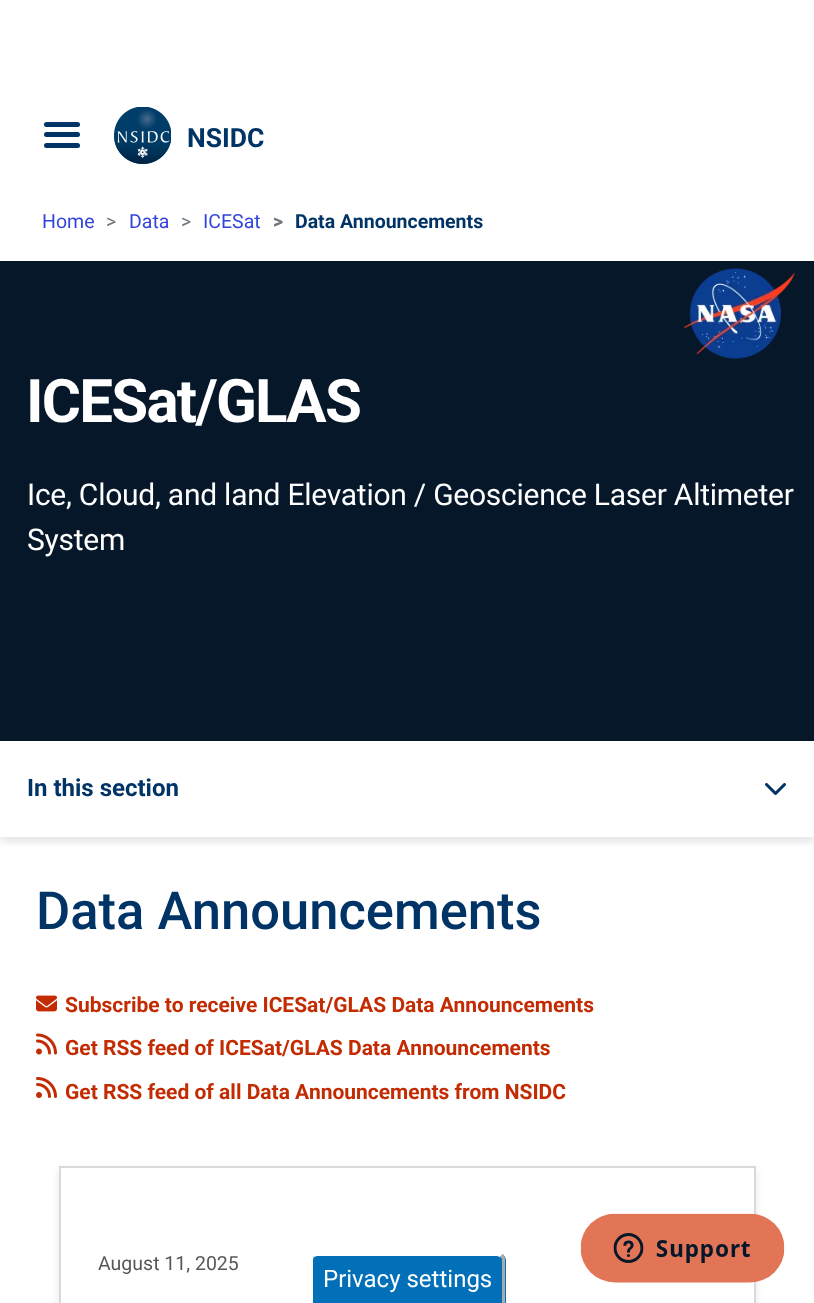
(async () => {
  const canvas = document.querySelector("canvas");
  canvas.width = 814;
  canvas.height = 1303;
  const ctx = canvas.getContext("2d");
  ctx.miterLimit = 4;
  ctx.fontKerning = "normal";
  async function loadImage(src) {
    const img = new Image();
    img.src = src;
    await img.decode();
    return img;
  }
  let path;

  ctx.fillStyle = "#ffffff";
  ctx.fillRect(0, 0, 814, 1303);
  ctx.fillStyle = "#003366";
  ctx.beginPath();
  ctx.roundRect(44, 122, 36, 5, 2.5);
  ctx.fill();
  ctx.beginPath();
  ctx.roundRect(44, 132, 36, 5, 2.5);
  ctx.fill();
  ctx.beginPath();
  ctx.roundRect(44, 143, 36, 5, 2.5);
  ctx.fill();
  ctx.drawImage(await loadImage("img/1.png"), 114, 107, 57, 58);
  ctx.fillStyle = "#051729";
  ctx.fillRect(0, 261, 814, 480);
  ctx.drawImage(await loadImage("img/2.png"), 683, 268, 112, 91);
  ctx.save();
  ctx.beginPath();
  ctx.rect(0, 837, 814, 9);
  ctx.clip();
  ctx.fillStyle = "rgba(0, 0, 0, 0.1)";
  ctx.filter = "blur(4.5px)";
  ctx.beginPath();
  ctx.rect(0, 776, 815, 66);
  ctx.fill();
  ctx.filter = "none";
  ctx.restore();
  ctx.drawImage(await loadImage("img/3.png"), 765, 783, 21, 12);
  ctx.drawImage(await loadImage("img/4.png"), 36, 995, 21, 17);
  ctx.drawImage(await loadImage("img/5.png"), 36, 1033, 21, 22);
  ctx.drawImage(await loadImage("img/6.png"), 36, 1077, 21, 21);
  ctx.save();
  path = new Path2D("M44 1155H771V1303H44ZM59 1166H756V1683H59Z");
  ctx.clip(path, "evenodd");
  ctx.fillStyle = "rgba(0, 0, 0, 0.09)";
  ctx.filter = "blur(4.5px)";
  ctx.beginPath();
  ctx.rect(59, 1170, 697, 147);
  ctx.fill();
  ctx.filter = "none";
  ctx.restore();
  ctx.strokeStyle = "#d9d9d9";
  ctx.lineWidth = 2;
  ctx.strokeRect(60, 1167, 695, 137);
  ctx.fillStyle = "#0170b9";
  path = new Path2D("M319 1253H498C502.5 1253 506 1256.5 506 1261V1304H311V1261C311 1256.5 314.5 1253 319 1253Z");
  ctx.fill(path);
  ctx.fillStyle = "#ffffff";
  path = new Path2D("M317 1256L314 1257L312 1255C319 1246 334 1252 345 1252H500L503 1254L500 1257L497 1256Z");
  ctx.fill(path);
  ctx.fillStyle = "#aaaaaa";
  path = new Path2D("M502 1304V1259L500 1257L503 1254C504 1256 505 1257 505 1259V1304Z");
  ctx.fill(path);
  ctx.fillStyle = "#ffffff";
  path = new Path2D("M310 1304V1260C310 1258 311 1256 312 1255L314 1257L313 1259V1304Z");
  ctx.fill(path);
  ctx.drawImage(await loadImage("img/7.png"), 580, 1213, 205, 70);
  ctx.font = "bold 26.5px Roboto";
  ctx.fillStyle = "#003366";
  ctx.fillText("NSIDC", 187, 147);
  ctx.font = "19.5px Roboto";
  ctx.fillStyle = "#3344dd";
  ctx.fillText("Home", 42, 228);
  ctx.fillStyle = "#6c757d";
  ctx.fillText(">", 106, 228);
  ctx.fillStyle = "#3344dd";
  ctx.fillText("Data", 129, 228);
  ctx.fillStyle = "#6c757d";
  ctx.fillText(">", 181, 228);
  ctx.fillStyle = "#3344dd";
  ctx.fillText("ICESat", 203, 228);
  ctx.font = "bold 19.5px Roboto";
  ctx.fillStyle = "#6c757d";
  ctx.fillText(">", 273, 228);
  ctx.fillStyle = "#003366";
  ctx.fillText("Data Announcements", 295, 228);
  ctx.letterSpacing = "-1.75px";
  ctx.font = "bold 60px Roboto";
  ctx.fillStyle = "#ffffff";
  ctx.fillText("ICESat/GLAS", 26, 422);
  ctx.letterSpacing = "-0.25px";
  ctx.font = "30px Roboto";
  ctx.fillText("Ice, Cloud, and land Elevation / Geoscience Laser Altimeter", 27, 505);
  ctx.fillText("System", 27, 550);
  ctx.letterSpacing = "0px";
  ctx.font = "bold 24px Roboto";
  ctx.fillStyle = "#003366";
  ctx.fillText("In this section", 27, 796);
  ctx.font = "500 52.5px Roboto";
  ctx.fillText("Data Announcements", 36, 929);
  ctx.font = "bold 21px Roboto";
  ctx.fillStyle = "#c32c02";
  for (const [text, x, y] of [
    ["Subscribe to receive ICESat/GLAS Data Announcements", 65, 1012],
    ["Get RSS feed of ICESat/GLAS Data Announcements", 65, 1055],
    ["Get RSS feed of all Data Announcements from NSIDC", 65, 1099],
  ]) {
    ctx.fillText(text, x, y);
  }
  ctx.font = "19.5px Roboto";
  ctx.fillStyle = "#5b5759";
  ctx.fillText("August 11, 2025", 98, 1270);
  ctx.font = "24px Roboto";
  ctx.fillStyle = "#ffffff";
  ctx.fillText("Privacy settings", 323, 1287);
})();
